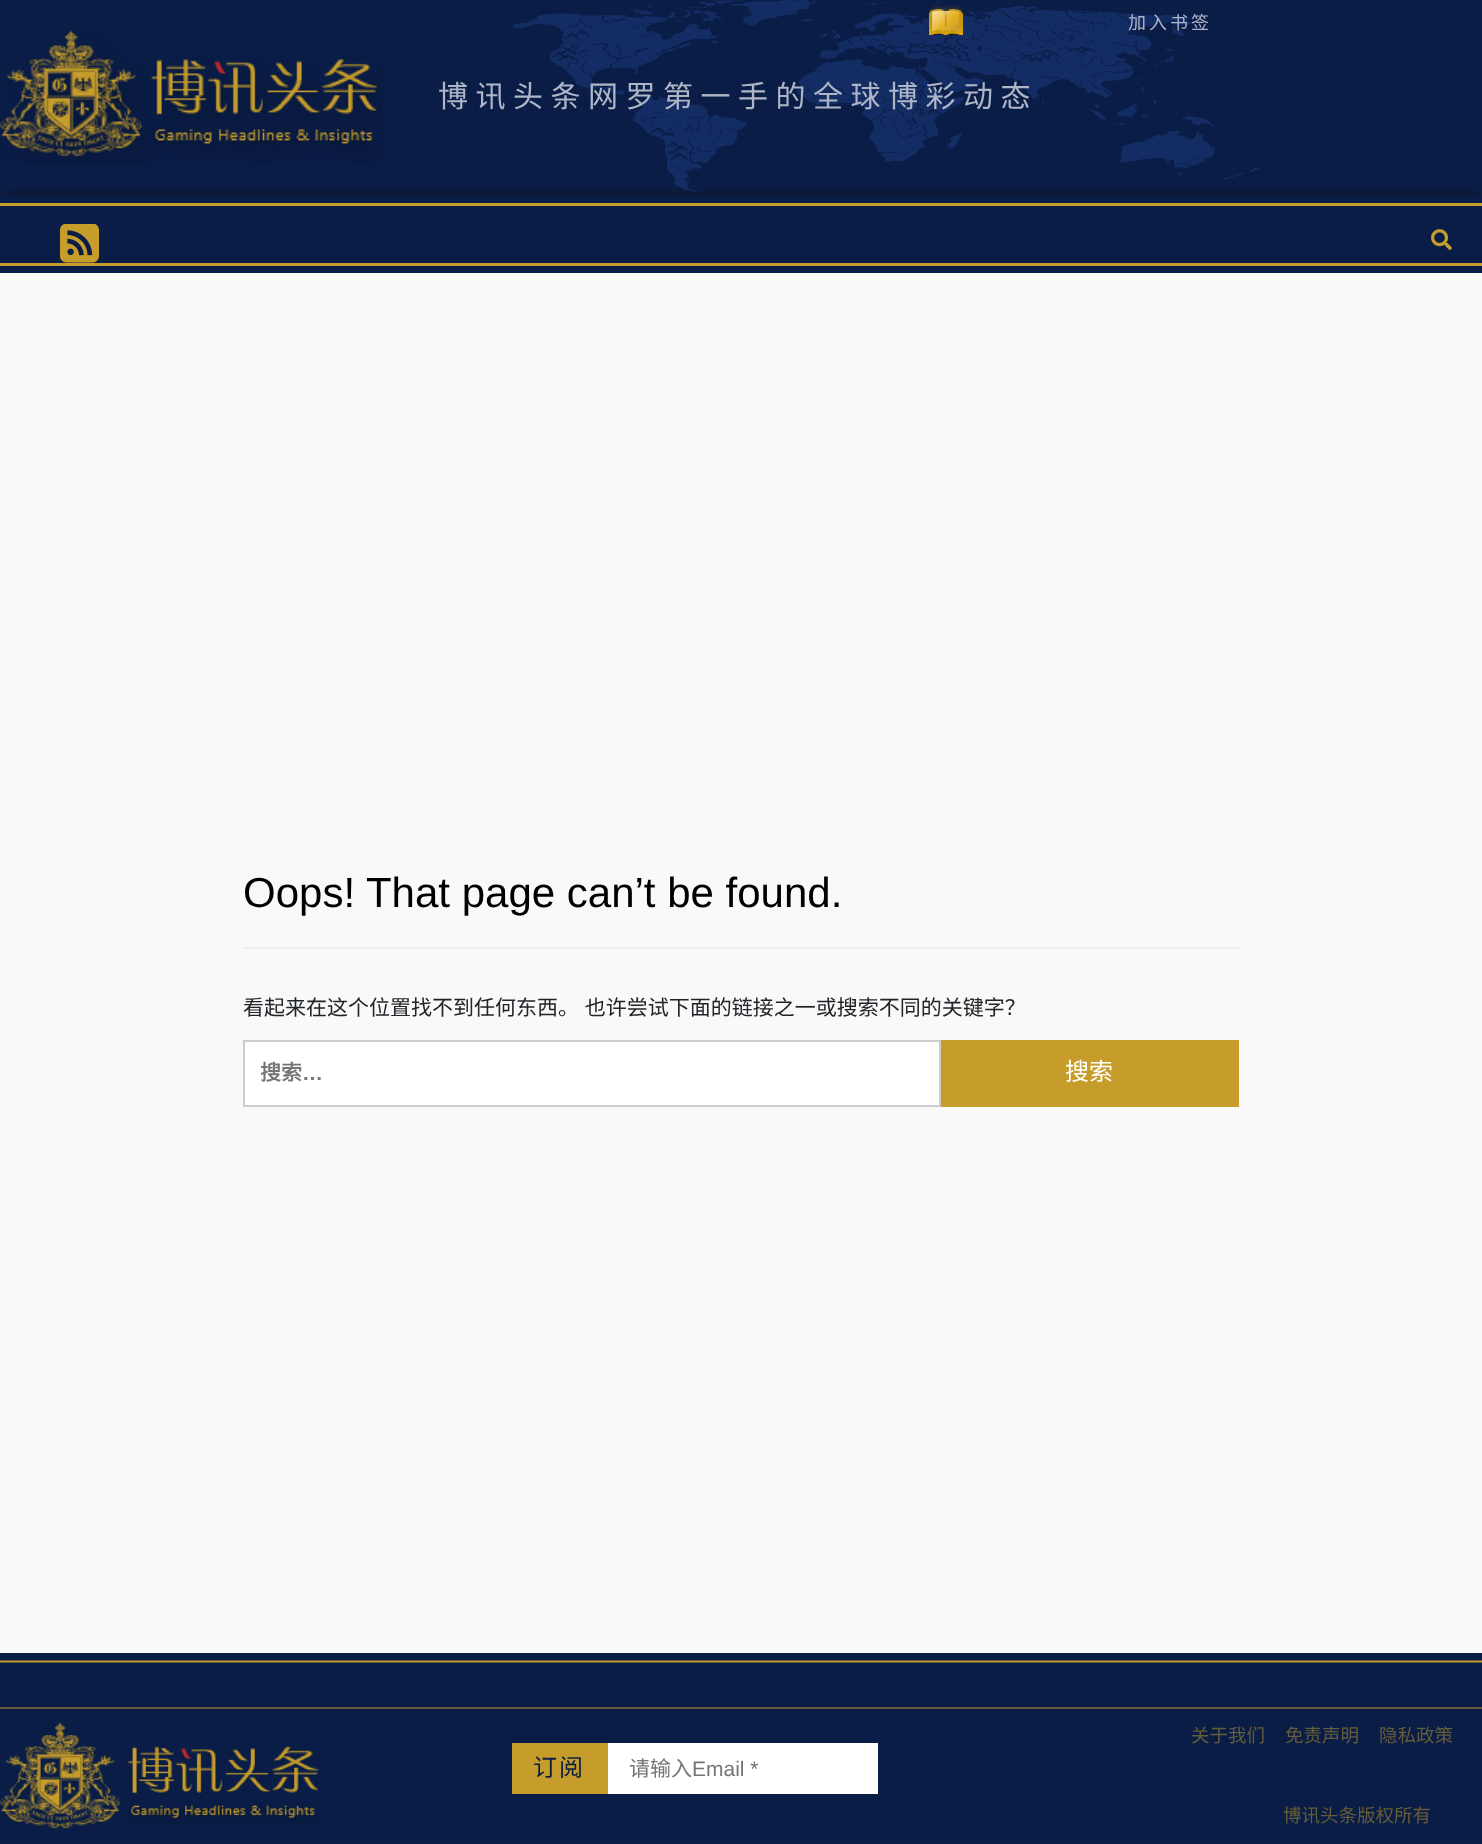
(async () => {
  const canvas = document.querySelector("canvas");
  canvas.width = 1482;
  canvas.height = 1844;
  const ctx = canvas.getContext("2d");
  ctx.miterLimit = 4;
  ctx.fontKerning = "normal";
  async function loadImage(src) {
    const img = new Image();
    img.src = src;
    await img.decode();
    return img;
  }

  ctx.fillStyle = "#f9f9f9";
  ctx.fillRect(0, 0, 1482, 1844);
  ctx.fillStyle = "#0a1d47";
  ctx.fillRect(0, 0, 1482, 273);
  ctx.save();
  ctx.beginPath();
  ctx.rect(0, 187, 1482, 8);
  ctx.clip();
  ctx.fillStyle = "#131212";
  ctx.filter = "blur(4px)";
  ctx.beginPath();
  ctx.rect(5, 195, 1473, 69);
  ctx.fill();
  ctx.filter = "none";
  ctx.restore();
  ctx.drawImage(await loadImage("img/2.png"), 510, 0, 750, 192);
  ctx.drawImage(await loadImage("img/1.png"), 929, 5, 34, 30);
  ctx.drawImage(await loadImage("img/3.png"), 0, 30, 385, 135);
  ctx.fillStyle = "#c69c2a";
  ctx.fillRect(0, 203, 1482, 3);
  ctx.drawImage(await loadImage("img/4.png"), 60, 224, 39, 39);
  ctx.drawImage(await loadImage("img/5.png"), 1431, 229, 21, 22);
  ctx.fillRect(0, 263, 1482, 3);
  ctx.fillStyle = "#eeeeee";
  ctx.fillRect(243, 947, 996, 2);
  ctx.fillStyle = "#ffffff";
  ctx.beginPath();
  ctx.rect(244, 1041, 696, 65);
  ctx.fill();
  ctx.strokeStyle = "#cccccc";
  ctx.lineWidth = 2;
  ctx.stroke();
  ctx.fillStyle = "#c69c2a";
  ctx.fillRect(941, 1040, 298, 67);
  ctx.fillStyle = "#091d46";
  ctx.fillRect(0, 1653, 1482, 191);
  ctx.drawImage(await loadImage("img/6.png"), 0, 1660, 1482, 49);
  ctx.drawImage(await loadImage("img/7.png"), 0, 1722, 320, 107);
  ctx.fillStyle = "#c69c2a";
  ctx.fillRect(512, 1743, 96, 51);
  ctx.fillStyle = "#ffffff";
  ctx.fillRect(608, 1743, 270, 51);
  ctx.letterSpacing = "3px";
  ctx.font = "18px Noto Sans CJK SC";
  ctx.fillStyle = "#adb5c6";
  ctx.fillText("加入书签", 1128, 29);
  ctx.letterSpacing = "7.5px";
  ctx.font = "30px Noto Sans CJK SC";
  ctx.fillText("博讯头条网罗第一手的全球博彩动态", 438, 107);
  ctx.letterSpacing = "0px";
  ctx.font = "42px Liberation Sans";
  ctx.fillStyle = "#000000";
  ctx.fillText("Oops! That page can’t be found.", 243, 907);
  ctx.wordSpacing = "1px";
  ctx.font = "21px Noto Sans CJK SC";
  ctx.fillStyle = "#212529";
  ctx.fillText("看起来在这个位置找不到任何东西。 也许尝试下面的链接之一或搜索不同的关键字？", 243, 1015);
  ctx.wordSpacing = "0px";
  ctx.font = "bold 21px Noto Sans CJK SC";
  ctx.fillStyle = "#757575";
  ctx.fillText("搜索", 260, 1080);
  ctx.font = "bold 21px Liberation Sans";
  ctx.fillText("…", 302, 1080);
  ctx.font = "24px Noto Sans CJK SC";
  ctx.fillStyle = "#ffffff";
  ctx.fillText("搜索", 1065, 1080);
  ctx.font = "18.5px Noto Sans CJK SC";
  ctx.fillStyle = "#675c38";
  for (const [text, x, y] of [
    ["关于我们", 1191, 1742],
    ["免责声明", 1285, 1742],
    ["隐私政策", 1379, 1742],
  ]) {
    ctx.fillText(text, x, y);
  }
  ctx.letterSpacing = "2px";
  ctx.font = "24px Noto Sans CJK SC";
  ctx.fillStyle = "#091d46";
  ctx.fillText("订阅", 533, 1776);
  ctx.letterSpacing = "0px";
  ctx.font = "21px Noto Sans CJK SC";
  ctx.fillStyle = "#757575";
  ctx.fillText("请输入", 629, 1776);
  ctx.font = "21px Liberation Sans";
  ctx.fillText("Email *", 692, 1776);
  ctx.font = "18.5px Noto Sans CJK SC";
  ctx.fillStyle = "#675c38";
  ctx.fillText("博讯头条版权所有", 1283, 1822);
})();
